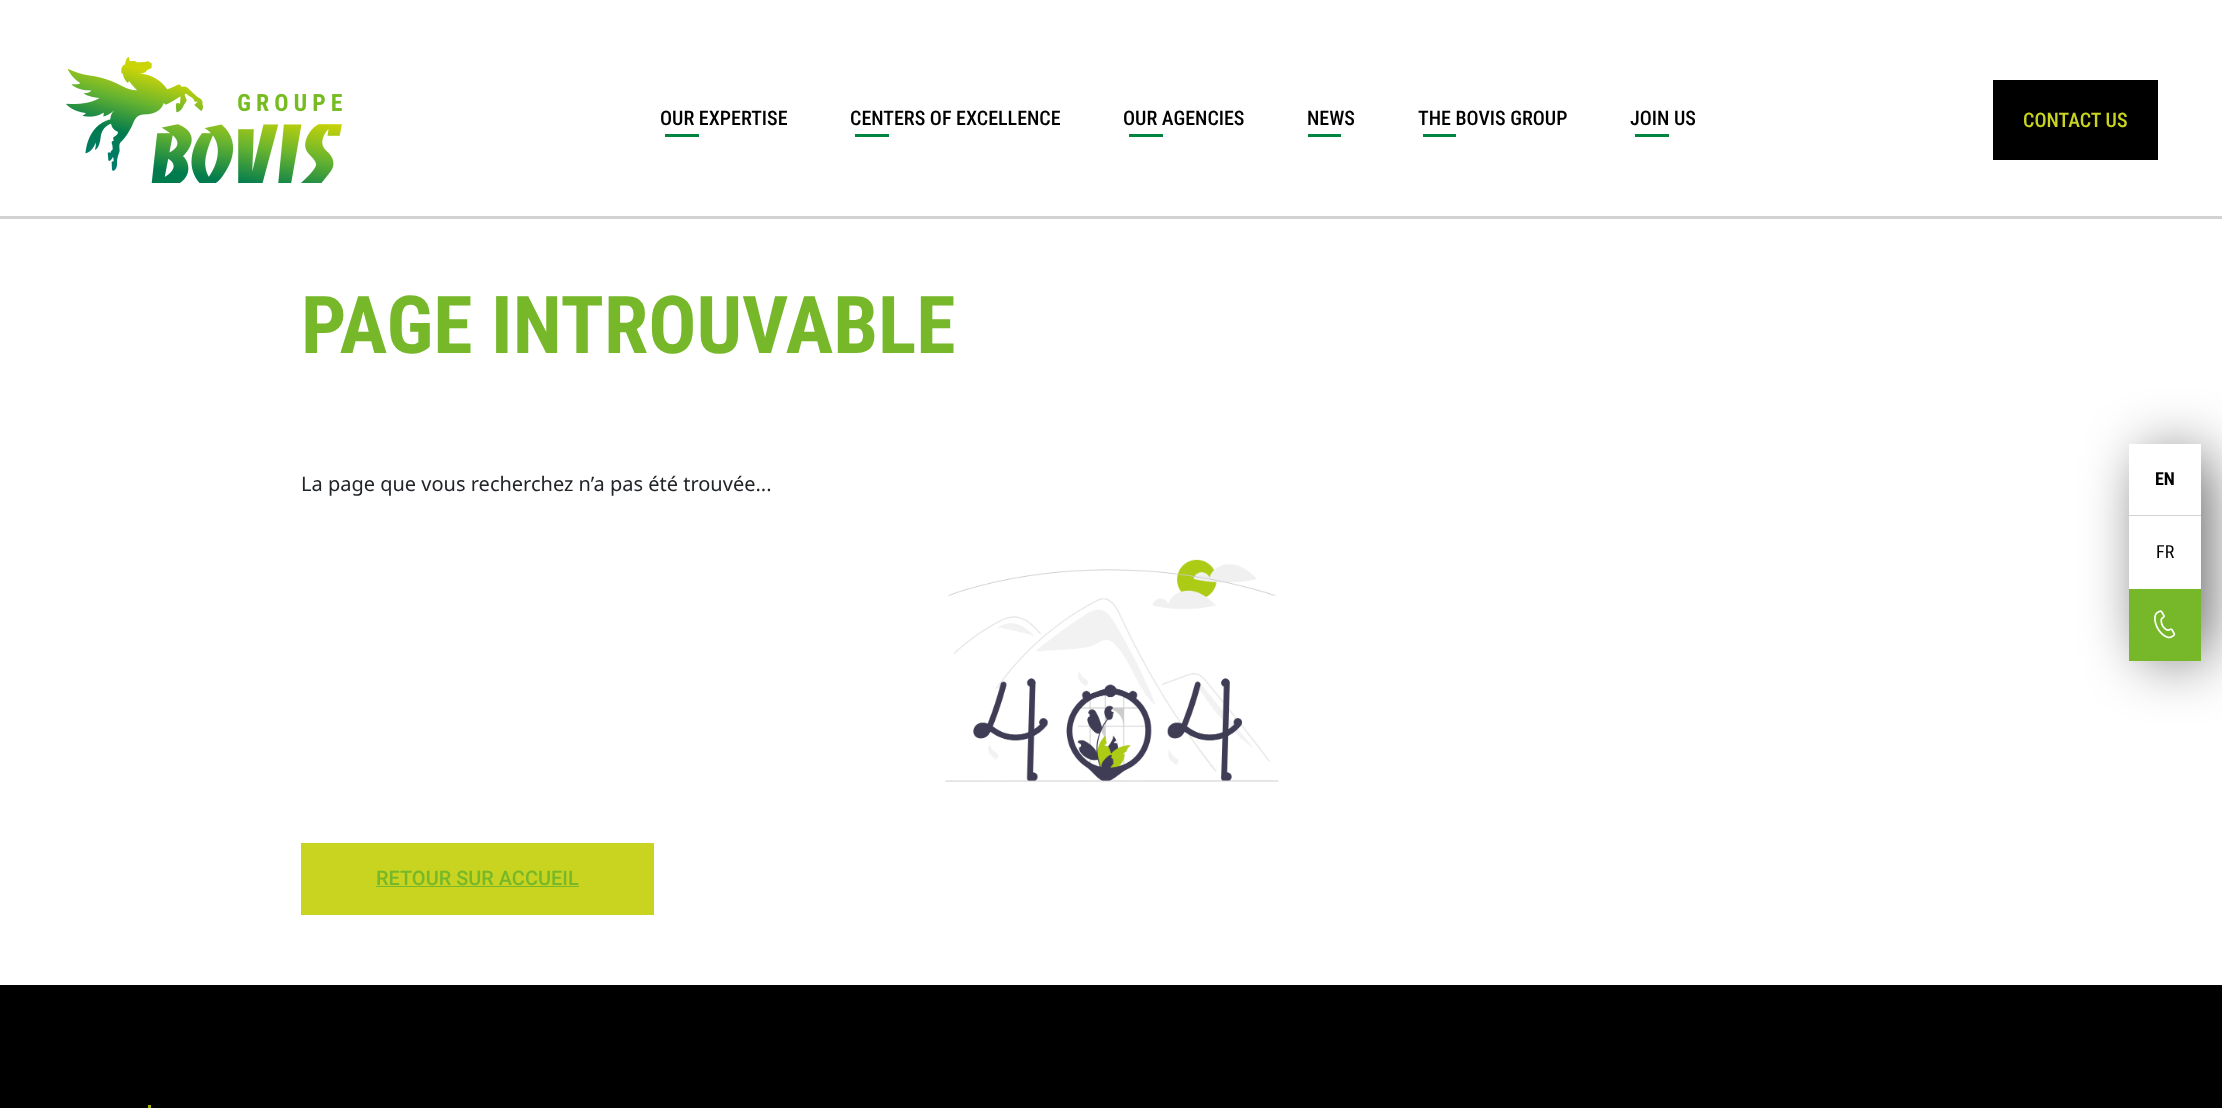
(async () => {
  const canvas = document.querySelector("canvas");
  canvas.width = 2222;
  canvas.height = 1108;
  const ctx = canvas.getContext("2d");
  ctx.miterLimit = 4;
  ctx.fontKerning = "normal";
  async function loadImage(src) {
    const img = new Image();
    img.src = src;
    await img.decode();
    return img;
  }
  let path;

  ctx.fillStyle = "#ffffff";
  ctx.fillRect(0, 0, 2222, 1108);
  ctx.drawImage(await loadImage("img/1.png"), 66, 57, 276, 126);
  for (const [x, y, w, h, color] of [
    [665, 134, 34, 3, "#00843f"],
    [855, 134, 34, 3, "#00843f"],
    [1129, 134, 34, 3, "#00843f"],
    [1308, 134, 33, 3, "#00843f"],
    [1423, 134, 33, 3, "#00843f"],
    [1635, 134, 34, 3, "#00843f"],
    [1993, 80, 165, 80, "#000000"],
    [0, 216, 2222, 3, "#d2d2d2"],
  ]) {
    ctx.fillStyle = color;
    ctx.fillRect(x, y, w, h);
  }
  ctx.drawImage(await loadImage("img/2.png"), 945, 559, 334, 223);
  ctx.fillStyle = "#c8d41f";
  ctx.fillRect(301, 843, 353, 72);
  ctx.fillStyle = "#76b82a";
  ctx.fillRect(376, 886, 203, 1);
  ctx.save();
  path = new Path2D("M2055 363H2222V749H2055ZM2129 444H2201V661H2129Z");
  ctx.clip(path, "evenodd");
  ctx.fillStyle = "rgba(0, 0, 0, 0.75)";
  ctx.filter = "blur(30.5px)";
  ctx.beginPath();
  ctx.rect(2148, 456, 55, 200);
  ctx.fill();
  ctx.filter = "none";
  ctx.restore();
  ctx.fillStyle = "#d2d2d2";
  ctx.fillRect(2129, 515, 72, 1);
  ctx.fillStyle = "#76b82a";
  ctx.fillRect(2129, 589, 72, 72);
  ctx.drawImage(await loadImage("img/3.png"), 2154, 610, 22, 29);
  ctx.fillStyle = "#000000";
  ctx.fillRect(0, 985, 2222, 123);
  ctx.fillStyle = "#a6ae06";
  ctx.fillRect(148, 1105, 3, 3);
  ctx.font = "500 20px Roboto Condensed";
  ctx.fillStyle = "#000000";
  for (const [text, x, y] of [
    ["OUR EXPERTISE", 660, 125],
    ["CENTERS OF EXCELLENCE", 850, 125],
    ["OUR AGENCIES", 1123, 125],
    ["NEWS", 1307, 125],
    ["THE BOVIS GROUP", 1418, 125],
    ["JOIN US", 1630, 125],
  ]) {
    ctx.fillText(text, x, y);
  }
  ctx.fillStyle = "#c8d41f";
  ctx.fillText("CONTACT US", 2023, 127);
  ctx.font = "bold 80px Roboto Condensed";
  ctx.fillStyle = "#76b82a";
  ctx.fillText("PAGE INTROUVABLE", 301, 353);
  ctx.font = "20px Noto Sans";
  ctx.fillStyle = "#212529";
  ctx.fillText("La page que vous recherchez n’a pas été trouvée...", 301, 491);
  ctx.font = "500 20px Roboto";
  ctx.fillStyle = "#76b82a";
  ctx.fillText("RETOUR SUR ACCUEIL", 376, 885);
  ctx.font = "bold 18px Roboto Condensed";
  ctx.fillStyle = "#000000";
  ctx.fillText("EN", 2155, 485);
  ctx.font = "18px Roboto Condensed";
  ctx.fillText("FR", 2156, 558);
})();
